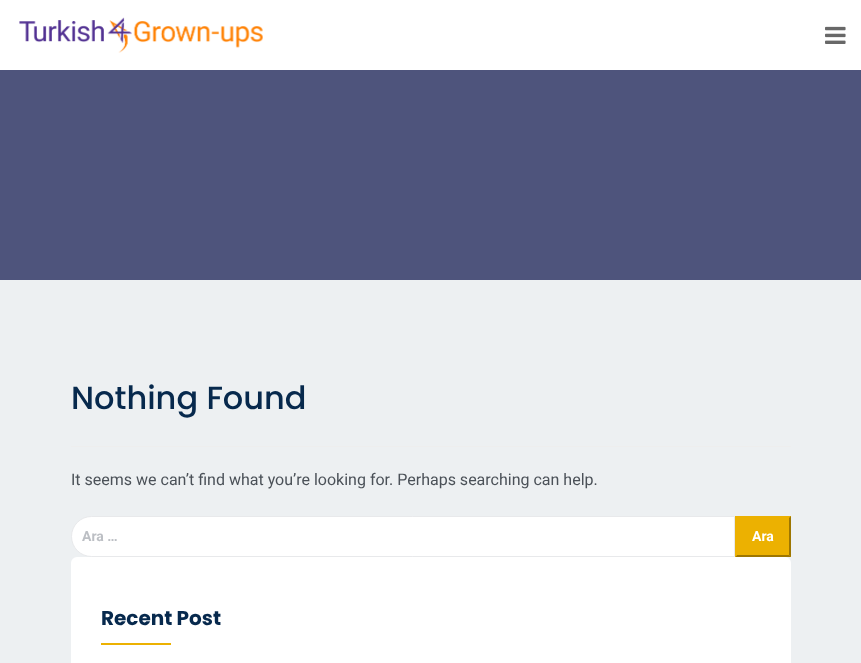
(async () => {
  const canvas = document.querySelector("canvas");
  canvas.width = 861;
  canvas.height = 663;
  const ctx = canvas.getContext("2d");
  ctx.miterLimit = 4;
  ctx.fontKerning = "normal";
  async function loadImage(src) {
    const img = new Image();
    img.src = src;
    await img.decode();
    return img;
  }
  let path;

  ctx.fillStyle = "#edf0f2";
  ctx.fillRect(0, 0, 861, 663);
  ctx.fillStyle = "#ffffff";
  ctx.fillRect(0, 0, 861, 70);
  ctx.drawImage(await loadImage("img/1.png"), 19, 17, 244, 36);
  ctx.drawImage(await loadImage("img/2.png"), 825, 26, 21, 18);
  ctx.fillStyle = "#4e547c";
  ctx.fillRect(0, 70, 861, 210);
  ctx.fillStyle = "#eeeeee";
  ctx.fillRect(71, 446, 720, 1);
  ctx.fillStyle = "#ffffff";
  ctx.beginPath();
  ctx.roundRect(71.5, 516.5, 663, 40, [20, 0.5, 0.5, 20]);
  ctx.fill();
  ctx.strokeStyle = "#e8e9eb";
  ctx.stroke();
  ctx.fillStyle = "#ecb101";
  ctx.fillRect(735, 516, 56, 41);
  ctx.fillStyle = "#9d7601";
  path = new Path2D("M791 516V557L789 555V518Z");
  ctx.fill(path);
  path = new Path2D("M791 557H735L737 555H789Z");
  ctx.fill(path);
  ctx.fillStyle = "#ecb101";
  path = new Path2D("M735 557V516L737 518V555Z");
  ctx.fill(path);
  ctx.fillStyle = "#ffffff";
  ctx.beginPath();
  ctx.roundRect(71, 557, 720, 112, 6);
  ctx.fill();
  ctx.fillStyle = "#ecb101";
  ctx.fillRect(101, 643, 70, 2);
  ctx.font = "500 32px Poppins";
  ctx.fillStyle = "#07294d";
  ctx.fillText("Nothing Found", 71, 409);
  ctx.font = "16px Roboto";
  ctx.fillStyle = "#4b5158";
  ctx.fillText("It seems we can’t find what you’re looking for. Perhaps searching can help.", 71, 485);
  ctx.font = "bold 14px Roboto";
  ctx.fillStyle = "#bcbfc4";
  ctx.fillText("Ara …", 82, 541);
  ctx.fillStyle = "#ffffff";
  ctx.fillText("Ara", 752, 541);
  ctx.font = "bold 20px Poppins";
  ctx.fillStyle = "#07294d";
  ctx.fillText("Recent Post", 101, 625);
})();
